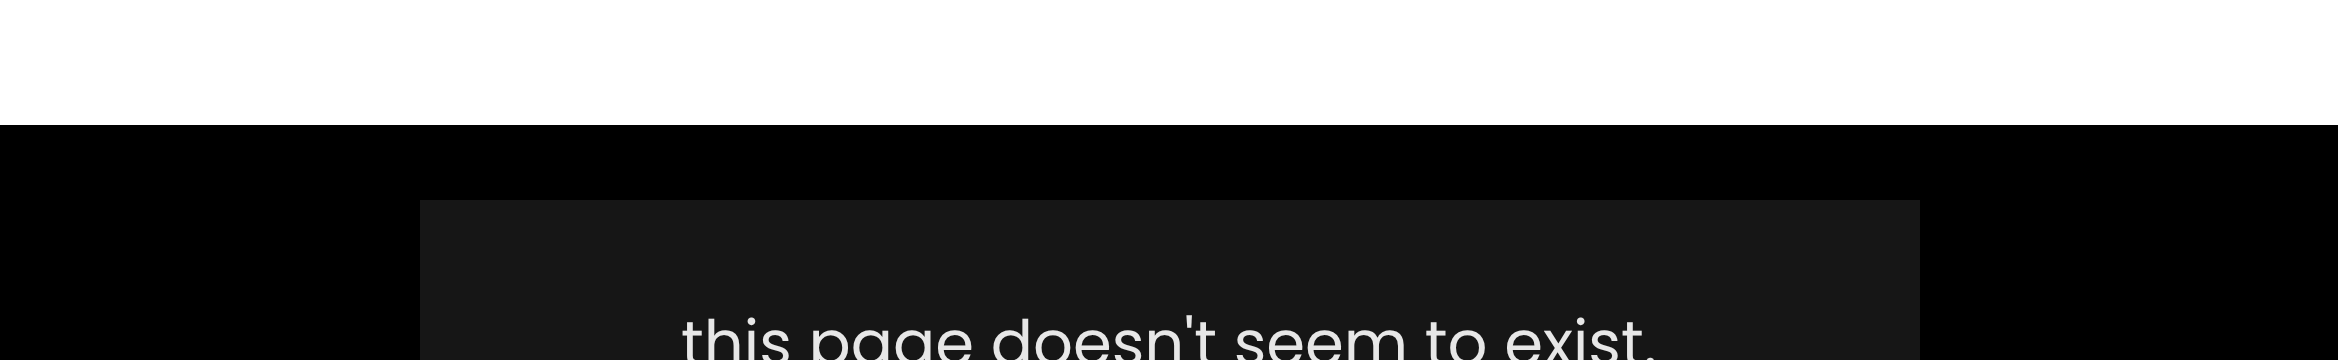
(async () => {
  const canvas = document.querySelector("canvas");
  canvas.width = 2338;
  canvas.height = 360;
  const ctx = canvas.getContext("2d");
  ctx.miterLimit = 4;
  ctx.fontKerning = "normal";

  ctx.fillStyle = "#000000";
  ctx.fillRect(0, 0, 2338, 360);
  ctx.fillStyle = "#ffffff";
  ctx.fillRect(0, 0, 2338, 125);
  ctx.fillStyle = "#161616";
  ctx.fillRect(420, 200, 1500, 160);
  ctx.font = "62.5px Poppins";
  ctx.fillStyle = "#e7e7e7";
  ctx.fillText("this page doesn't seem to exist.", 681, 365);
})();
